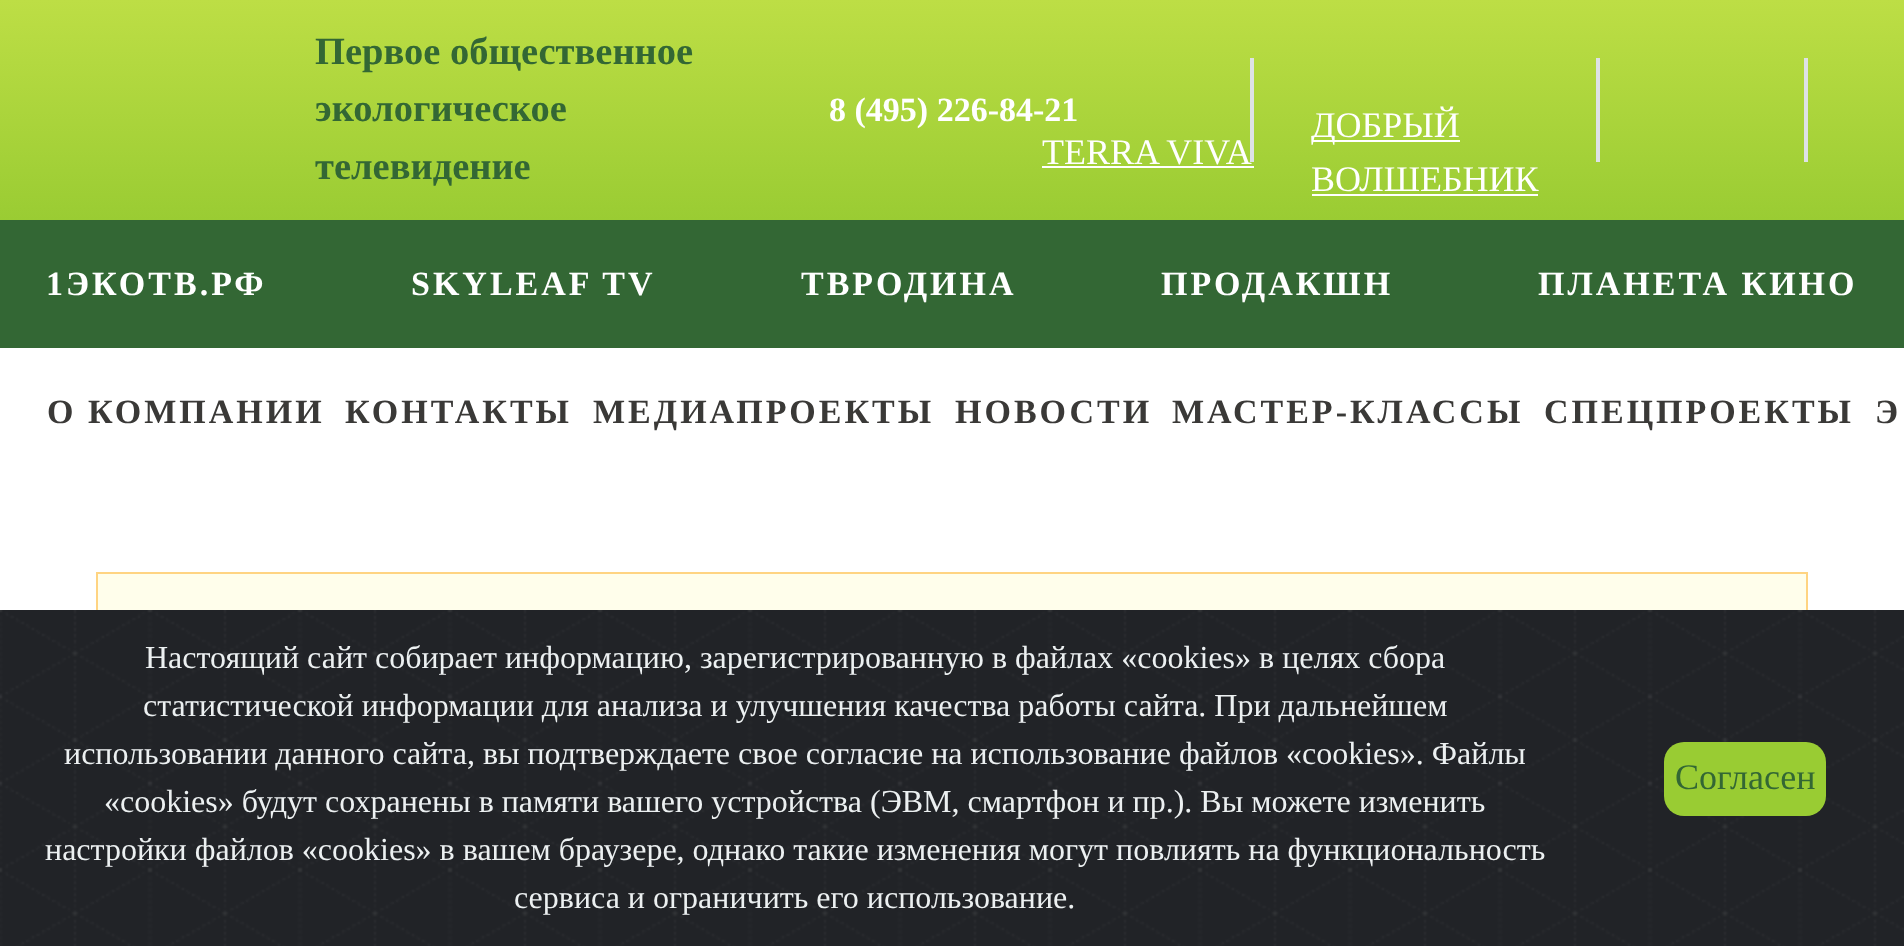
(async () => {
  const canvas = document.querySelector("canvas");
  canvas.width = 1904;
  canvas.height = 946;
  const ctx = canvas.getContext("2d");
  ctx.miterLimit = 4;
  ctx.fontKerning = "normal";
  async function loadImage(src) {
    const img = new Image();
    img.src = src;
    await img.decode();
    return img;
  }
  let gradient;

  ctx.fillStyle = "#ffffff";
  ctx.fillRect(0, 0, 1904, 946);
  gradient = ctx.createLinearGradient(952, 220, 952, 0);
  gradient.addColorStop(0, "#9acc33");
  gradient.addColorStop(1, "#bdde45");
  ctx.fillStyle = gradient;
  ctx.fillRect(0, 0, 1904, 220);
  for (const [x, y, w, h, color] of [
    [1250, 58, 4, 104, "#dee2e6"],
    [1312, 140, 148, 2, "#ffffff"],
    [1312, 194, 226, 2, "#ffffff"],
    [1596, 58, 4, 104, "#dee2e6"],
    [1804, 58, 4, 104, "#dee2e6"],
    [1042, 166, 212, 2, "#ffffff"],
    [0, 220, 1904, 128, "#336734"],
    [98, 574, 1708, 36, "#fffeeb"],
  ]) {
    ctx.fillStyle = color;
    ctx.fillRect(x, y, w, h);
  }
  ctx.strokeStyle = "#ffd482";
  ctx.lineWidth = 2;
  ctx.strokeRect(97, 573, 1710, 84);
  ctx.drawImage(await loadImage("img/1.png"), 0, 610, 1904, 336);
  ctx.fillStyle = "#99cc33";
  ctx.beginPath();
  ctx.roundRect(1664, 742, 162, 74, 20);
  ctx.fill();
  ctx.font = "bold 38.5px Liberation Serif";
  ctx.fillStyle = "#336734";
  for (const [text, x, y] of [
    ["Первое общественное", 315, 64],
    ["экологическое", 315, 121],
    ["телевидение", 315, 179],
  ]) {
    ctx.fillText(text, x, y);
  }
  ctx.font = "bold 34px Liberation Serif";
  ctx.fillStyle = "#ffffff";
  ctx.fillText("8 (495) 226-84-21", 829, 121);
  ctx.font = "36px Liberation Serif";
  for (const [text, x, y] of [
    ["ДОБРЫЙ", 1311, 137],
    ["ВОЛШЕБНИК", 1311, 191],
    ["TERRA VIVA", 1042, 164],
  ]) {
    ctx.fillText(text, x, y);
  }
  ctx.letterSpacing = "3px";
  ctx.font = "bold 34px Liberation Serif";
  for (const [text, x, y] of [
    ["1ЭКОТВ.РФ", 46, 295],
    ["SKYLEAF TV", 411, 295],
    ["ТВРОДИНА", 801, 295],
    ["ПРОДАКШН", 1161, 295],
    ["ПЛАНЕТА КИНО", 1538, 295],
  ]) {
    ctx.fillText(text, x, y);
  }
  ctx.fillStyle = "#3a3937";
  for (const [text, x, y] of [
    ["О КОМПАНИИ", 47, 423],
    ["КОНТАКТЫ", 345, 423],
    ["МЕДИАПРОЕКТЫ", 593, 423],
    ["НОВОСТИ", 955, 423],
    ["МАСТЕР-КЛАССЫ", 1172, 423],
    ["СПЕЦПРОЕКТЫ", 1544, 423],
    ["Э", 1875, 423],
  ]) {
    ctx.fillText(text, x, y);
  }
  ctx.letterSpacing = "0px";
  ctx.font = "32px Liberation Serif";
  ctx.fillStyle = "#ecf0f1";
  for (const [text, x, y] of [
    ["Настоящий сайт собирает информацию, зарегистрированную в файлах «cookies» в целях сбора", 145, 668],
    ["статистической информации для анализа и улучшения качества работы сайта. При дальнейшем", 143, 716],
    ["использовании данного сайта, вы подтверждаете свое согласие на использование файлов «cookies». Файлы", 64, 764],
    ["«cookies» будут сохранены в памяти вашего устройства (ЭВМ, смартфон и пр.). Вы можете изменить", 104, 812],
    ["настройки файлов «cookies» в вашем браузере, однако такие изменения могут повлиять на функциональность", 45, 860],
    ["сервиса и ограничить его использование.", 514, 908],
  ]) {
    ctx.fillText(text, x, y);
  }
  ctx.font = "36px Liberation Serif";
  ctx.fillStyle = "#336734";
  ctx.fillText("Согласен", 1675, 789);
})();
